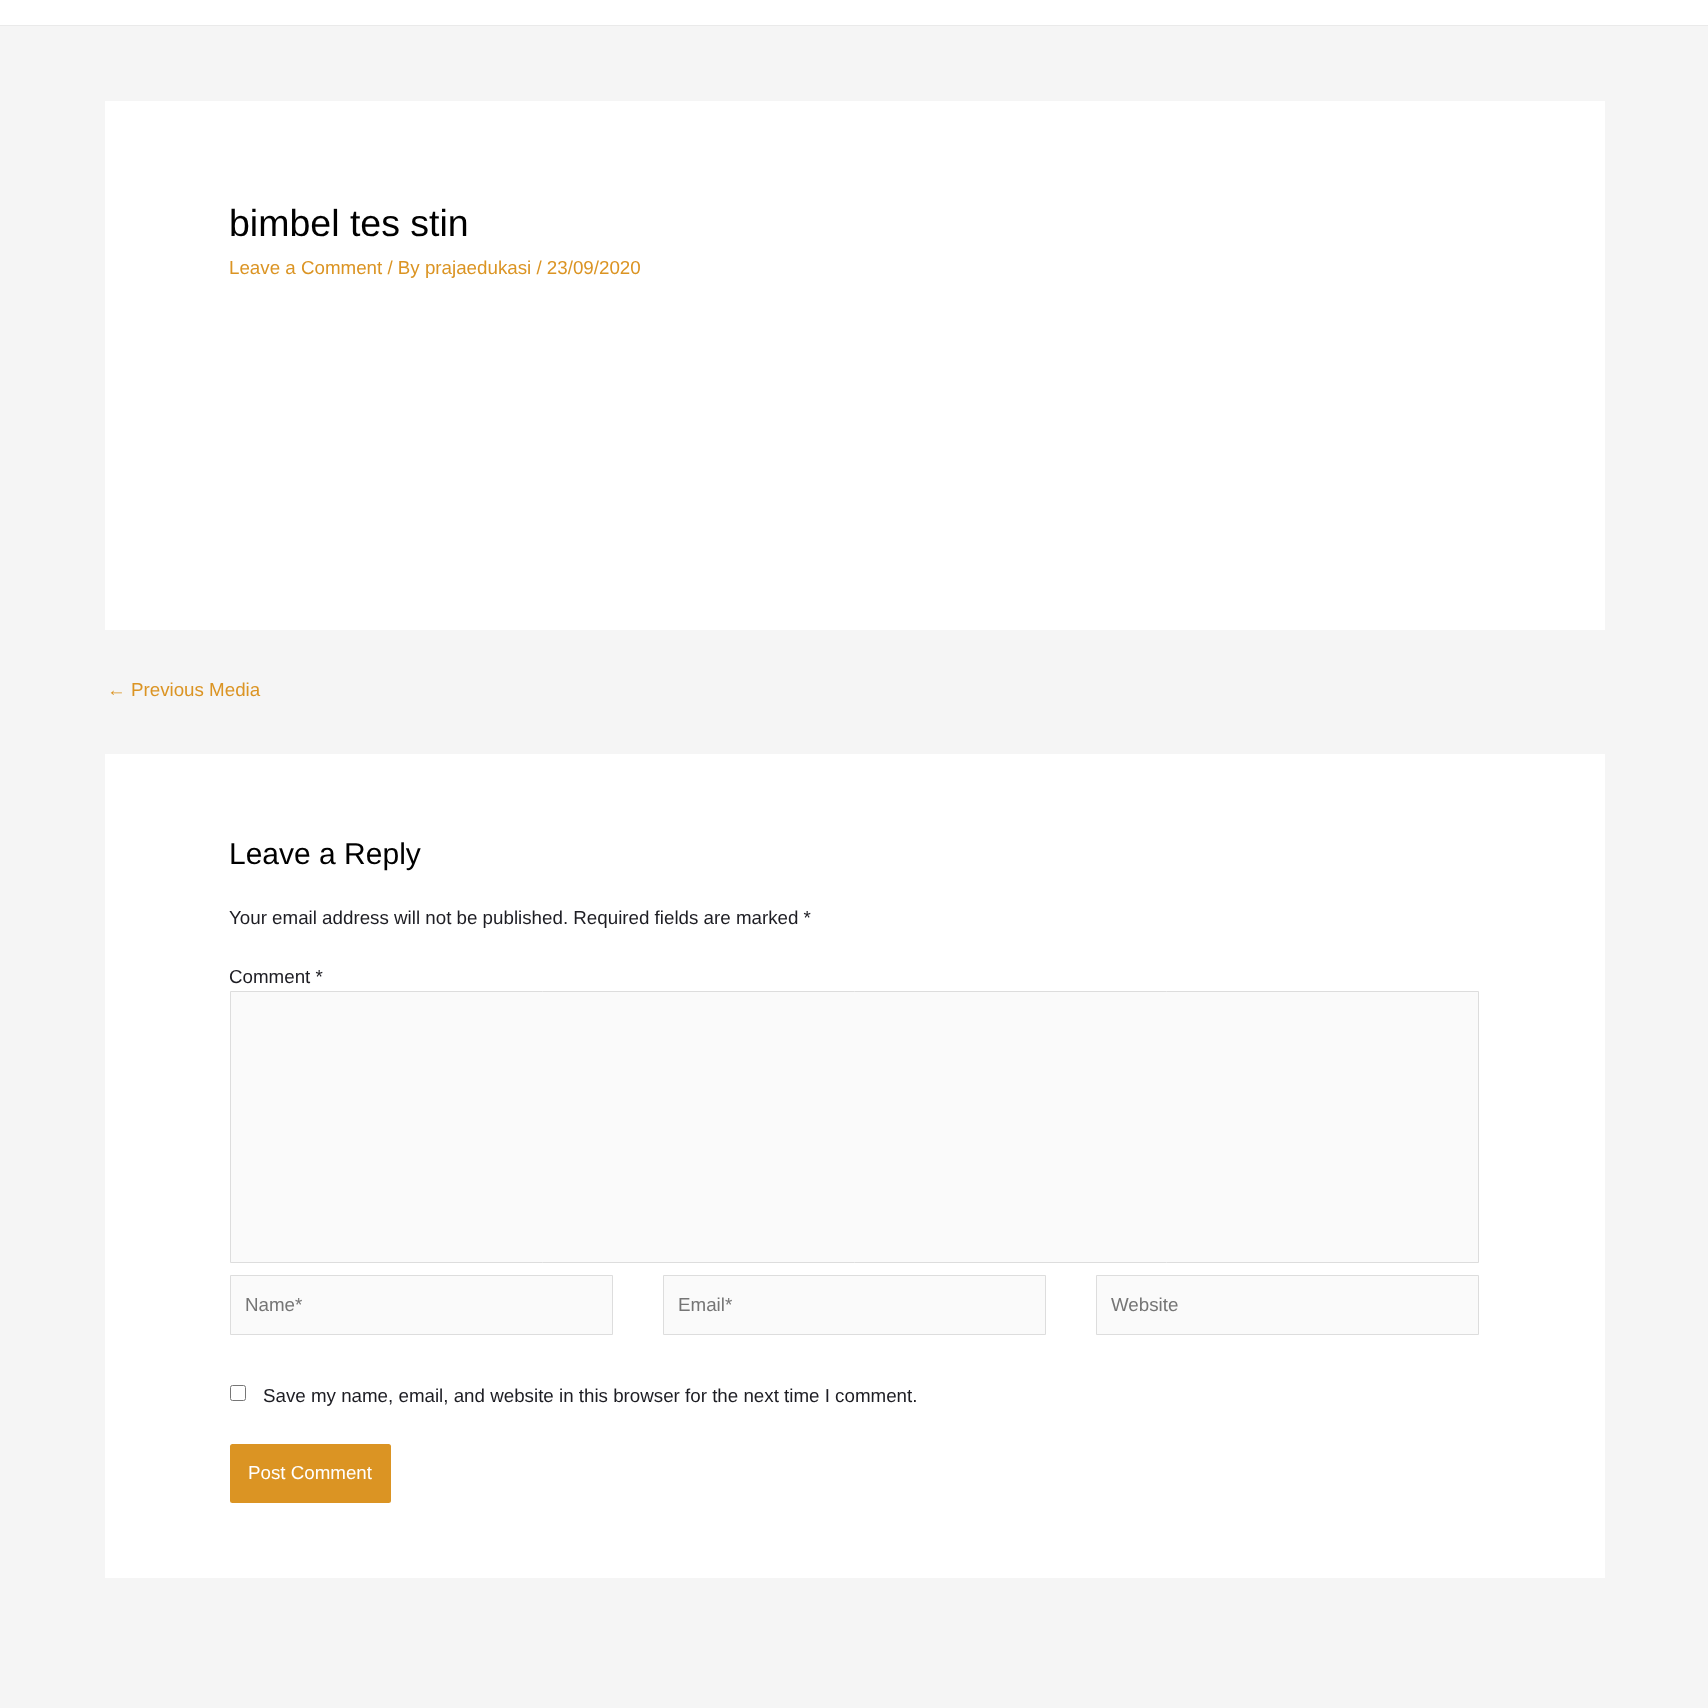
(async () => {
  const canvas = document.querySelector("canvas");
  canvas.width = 1708;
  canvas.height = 1708;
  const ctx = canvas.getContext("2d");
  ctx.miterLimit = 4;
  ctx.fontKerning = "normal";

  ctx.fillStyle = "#f5f5f5";
  ctx.fillRect(0, 0, 1708, 1708);
  for (const [x, y, w, h, color] of [
    [0, 0, 1708, 25, "#ffffff"],
    [0, 25, 1708, 1, "#eaeaea"],
    [105, 101, 1500, 529, "#ffffff"],
    [105, 754, 1500, 824, "#ffffff"],
  ]) {
    ctx.fillStyle = color;
    ctx.fillRect(x, y, w, h);
  }
  ctx.fillStyle = "#fafafa";
  ctx.beginPath();
  ctx.rect(230.5, 991.5, 1248, 271);
  ctx.fill();
  ctx.strokeStyle = "#dddddd";
  ctx.stroke();
  ctx.beginPath();
  ctx.rect(230.5, 1275.5, 382, 59);
  ctx.fill();
  ctx.stroke();
  ctx.beginPath();
  ctx.rect(663.5, 1275.5, 382, 59);
  ctx.fill();
  ctx.stroke();
  ctx.beginPath();
  ctx.rect(1096.5, 1275.5, 382, 59);
  ctx.fill();
  ctx.stroke();
  ctx.beginPath();
  ctx.roundRect(230.5, 1385.5, 15, 15, 2);
  ctx.strokeStyle = "#767676";
  ctx.stroke();
  ctx.fillStyle = "#db9423";
  ctx.beginPath();
  ctx.roundRect(230, 1444, 161, 59, 2.5);
  ctx.fill();
  ctx.font = "37.5px Liberation Sans";
  ctx.fillStyle = "#000000";
  ctx.fillText("bimbel tes stin", 229, 236);
  ctx.font = "18.75px Liberation Sans";
  ctx.fillStyle = "#db9423";
  ctx.fillText("Leave a Comment / By prajaedukasi / 23/09/2020", 229, 274);
  ctx.fillText("← Previous Media", 107, 696);
  ctx.font = "30px Liberation Sans";
  ctx.fillStyle = "#000000";
  ctx.fillText("Leave a Reply", 229, 864);
  ctx.font = "18.75px Liberation Sans";
  ctx.fillStyle = "#1d1d23";
  ctx.fillText("Your email address will not be published. Required fields are marked *", 229, 924);
  ctx.fillText("Comment *", 229, 983);
  ctx.fillStyle = "#757575";
  for (const [text, x, y] of [
    ["Name*", 245, 1311],
    ["Email*", 678, 1311],
    ["Website", 1111, 1311],
  ]) {
    ctx.fillText(text, x, y);
  }
  ctx.fillStyle = "#1d1d23";
  ctx.fillText("Save my name, email, and website in this browser for the next time I comment.", 263, 1402);
  ctx.fillStyle = "#ffffff";
  ctx.fillText("Post Comment", 248, 1479);
})();
